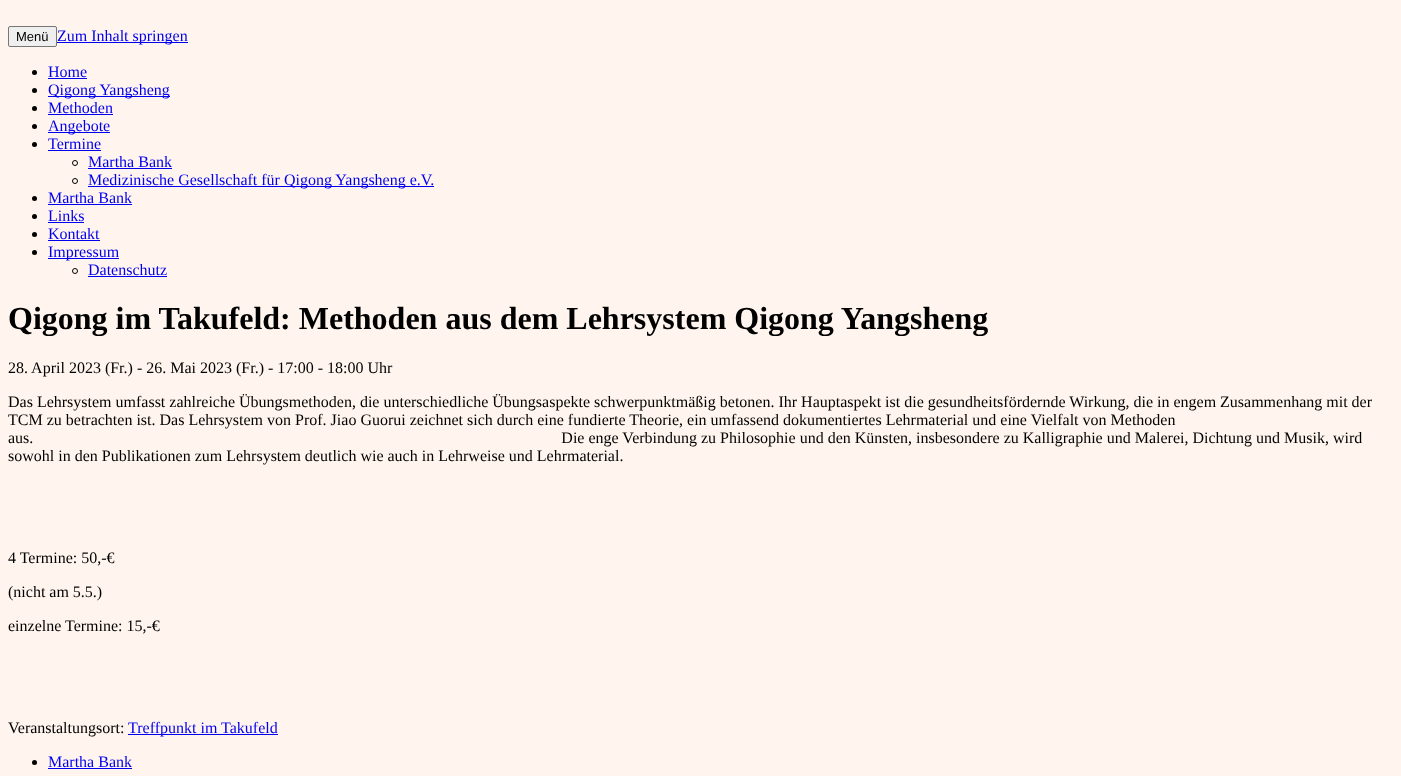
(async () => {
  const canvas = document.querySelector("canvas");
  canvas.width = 1401;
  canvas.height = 776;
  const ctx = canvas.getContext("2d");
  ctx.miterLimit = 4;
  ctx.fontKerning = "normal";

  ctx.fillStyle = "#fff5ee";
  ctx.fillRect(0, 0, 1401, 776);
  ctx.fillStyle = "#efefef";
  ctx.beginPath();
  ctx.roundRect(8.5, 26.5, 48, 20, 1.5);
  ctx.fill();
  ctx.strokeStyle = "#767676";
  ctx.stroke();
  ctx.fillStyle = "#0000ee";
  ctx.fillRect(57, 42, 131, 1);
  ctx.fillStyle = "#000000";
  ctx.beginPath();
  ctx.arc(34.5, 72.5, 2.5, 0, Math.PI * 2);
  ctx.fill();
  ctx.fillStyle = "#0000ee";
  ctx.fillRect(48, 78, 39, 1);
  ctx.fillStyle = "#000000";
  ctx.beginPath();
  ctx.arc(34.5, 90.5, 2.5, 0, Math.PI * 2);
  ctx.fill();
  ctx.fillStyle = "#0000ee";
  ctx.fillRect(48, 96, 122, 1);
  ctx.fillStyle = "#000000";
  ctx.beginPath();
  ctx.arc(34.5, 108.5, 2.5, 0, Math.PI * 2);
  ctx.fill();
  ctx.fillStyle = "#0000ee";
  ctx.fillRect(48, 114, 65, 1);
  ctx.fillStyle = "#000000";
  ctx.beginPath();
  ctx.arc(34.5, 126.5, 2.5, 0, Math.PI * 2);
  ctx.fill();
  ctx.fillStyle = "#0000ee";
  ctx.fillRect(48, 132, 62, 1);
  ctx.fillStyle = "#000000";
  ctx.beginPath();
  ctx.arc(34.5, 144.5, 2.5, 0, Math.PI * 2);
  ctx.fill();
  ctx.fillStyle = "#0000ee";
  ctx.fillRect(48, 150, 53, 1);
  ctx.beginPath();
  ctx.arc(75, 163, 2.5, 0, Math.PI * 2);
  ctx.strokeStyle = "#000000";
  ctx.stroke();
  ctx.fillRect(88, 168, 84, 1);
  ctx.beginPath();
  ctx.arc(75, 181, 2.5, 0, Math.PI * 2);
  ctx.stroke();
  ctx.fillRect(88, 186, 346, 1);
  ctx.fillStyle = "#000000";
  ctx.beginPath();
  ctx.arc(34.5, 198.5, 2.5, 0, Math.PI * 2);
  ctx.fill();
  ctx.fillStyle = "#0000ee";
  ctx.fillRect(48, 204, 84, 1);
  ctx.fillStyle = "#000000";
  ctx.beginPath();
  ctx.arc(34.5, 216.5, 2.5, 0, Math.PI * 2);
  ctx.fill();
  ctx.fillStyle = "#0000ee";
  ctx.fillRect(48, 222, 36, 1);
  ctx.fillStyle = "#000000";
  ctx.beginPath();
  ctx.arc(34.5, 234.5, 2.5, 0, Math.PI * 2);
  ctx.fill();
  ctx.fillStyle = "#0000ee";
  ctx.fillRect(48, 240, 52, 1);
  ctx.fillStyle = "#000000";
  ctx.beginPath();
  ctx.arc(34.5, 252.5, 2.5, 0, Math.PI * 2);
  ctx.fill();
  ctx.fillStyle = "#0000ee";
  ctx.fillRect(48, 258, 71, 1);
  ctx.beginPath();
  ctx.arc(75, 271, 2.5, 0, Math.PI * 2);
  ctx.stroke();
  ctx.fillRect(88, 276, 79, 1);
  ctx.fillRect(128, 734, 150, 1);
  ctx.fillStyle = "#000000";
  ctx.beginPath();
  ctx.arc(34.5, 762.5, 2.5, 0, Math.PI * 2);
  ctx.fill();
  ctx.fillStyle = "#0000ee";
  ctx.fillRect(48, 768, 84, 1);
  ctx.font = "13px Liberation Sans";
  ctx.fillStyle = "#000000";
  ctx.fillText("Menü", 16, 41);
  ctx.font = "16px Liberation Serif";
  ctx.fillStyle = "#0000ee";
  for (const [text, x, y] of [
    ["Zum Inhalt springen", 57, 41],
    ["Home", 48, 77],
    ["Qigong Yangsheng", 48, 95],
    ["Methoden", 48, 113],
    ["Angebote", 48, 131],
    ["Termine", 48, 149],
    ["Martha Bank", 88, 167],
    ["Medizinische Gesellschaft für Qigong Yangsheng e.V.", 88, 185],
    ["Martha Bank", 48, 203],
    ["Links", 48, 221],
    ["Kontakt", 48, 239],
    ["Impressum", 48, 257],
    ["Datenschutz", 88, 275],
  ]) {
    ctx.fillText(text, x, y);
  }
  ctx.font = "bold 32px Liberation Serif";
  ctx.fillStyle = "#000000";
  ctx.fillText("Qigong im Takufeld: Methoden aus dem Lehrsystem Qigong Yangsheng", 8, 329);
  ctx.font = "16px Liberation Serif";
  for (const [text, x, y] of [
    ["28. April 2023 (Fr.) - 26. Mai 2023 (Fr.) - 17:00 - 18:00 Uhr", 8, 373],
    ["Das Lehrsystem umfasst zahlreiche Übungsmethoden, die unterschiedliche Übungsaspekte schwerpunktmäßig betonen. Ihr Hauptaspekt ist die gesundheitsfördernde Wirkung, die in engem Zusammenhang mit der", 8, 407],
    ["TCM zu betrachten ist. Das Lehrsystem von Prof. Jiao Guorui zeichnet sich durch eine fundierte Theorie, ein umfassend dokumentiertes Lehrmaterial und eine Vielfalt von Methoden", 8, 425],
    ["aus.                                                                                                                                    Die enge Verbindung zu Philosophie und den Künsten, insbesondere zu Kalligraphie und Malerei, Dichtung und Musik, wird", 8, 443],
    ["sowohl in den Publikationen zum Lehrsystem deutlich wie auch in Lehrweise und Lehrmaterial.", 8, 461],
    ["4 Termine: 50,-€", 8, 563],
    ["(nicht am 5.5.)", 8, 597],
    ["einzelne Termine: 15,-€", 8, 631],
    ["Veranstaltungsort:", 8, 733],
  ]) {
    ctx.fillText(text, x, y);
  }
  ctx.fillStyle = "#0000ee";
  ctx.fillText("Treffpunkt im Takufeld", 128, 733);
  ctx.fillText("Martha Bank", 48, 767);
})();
